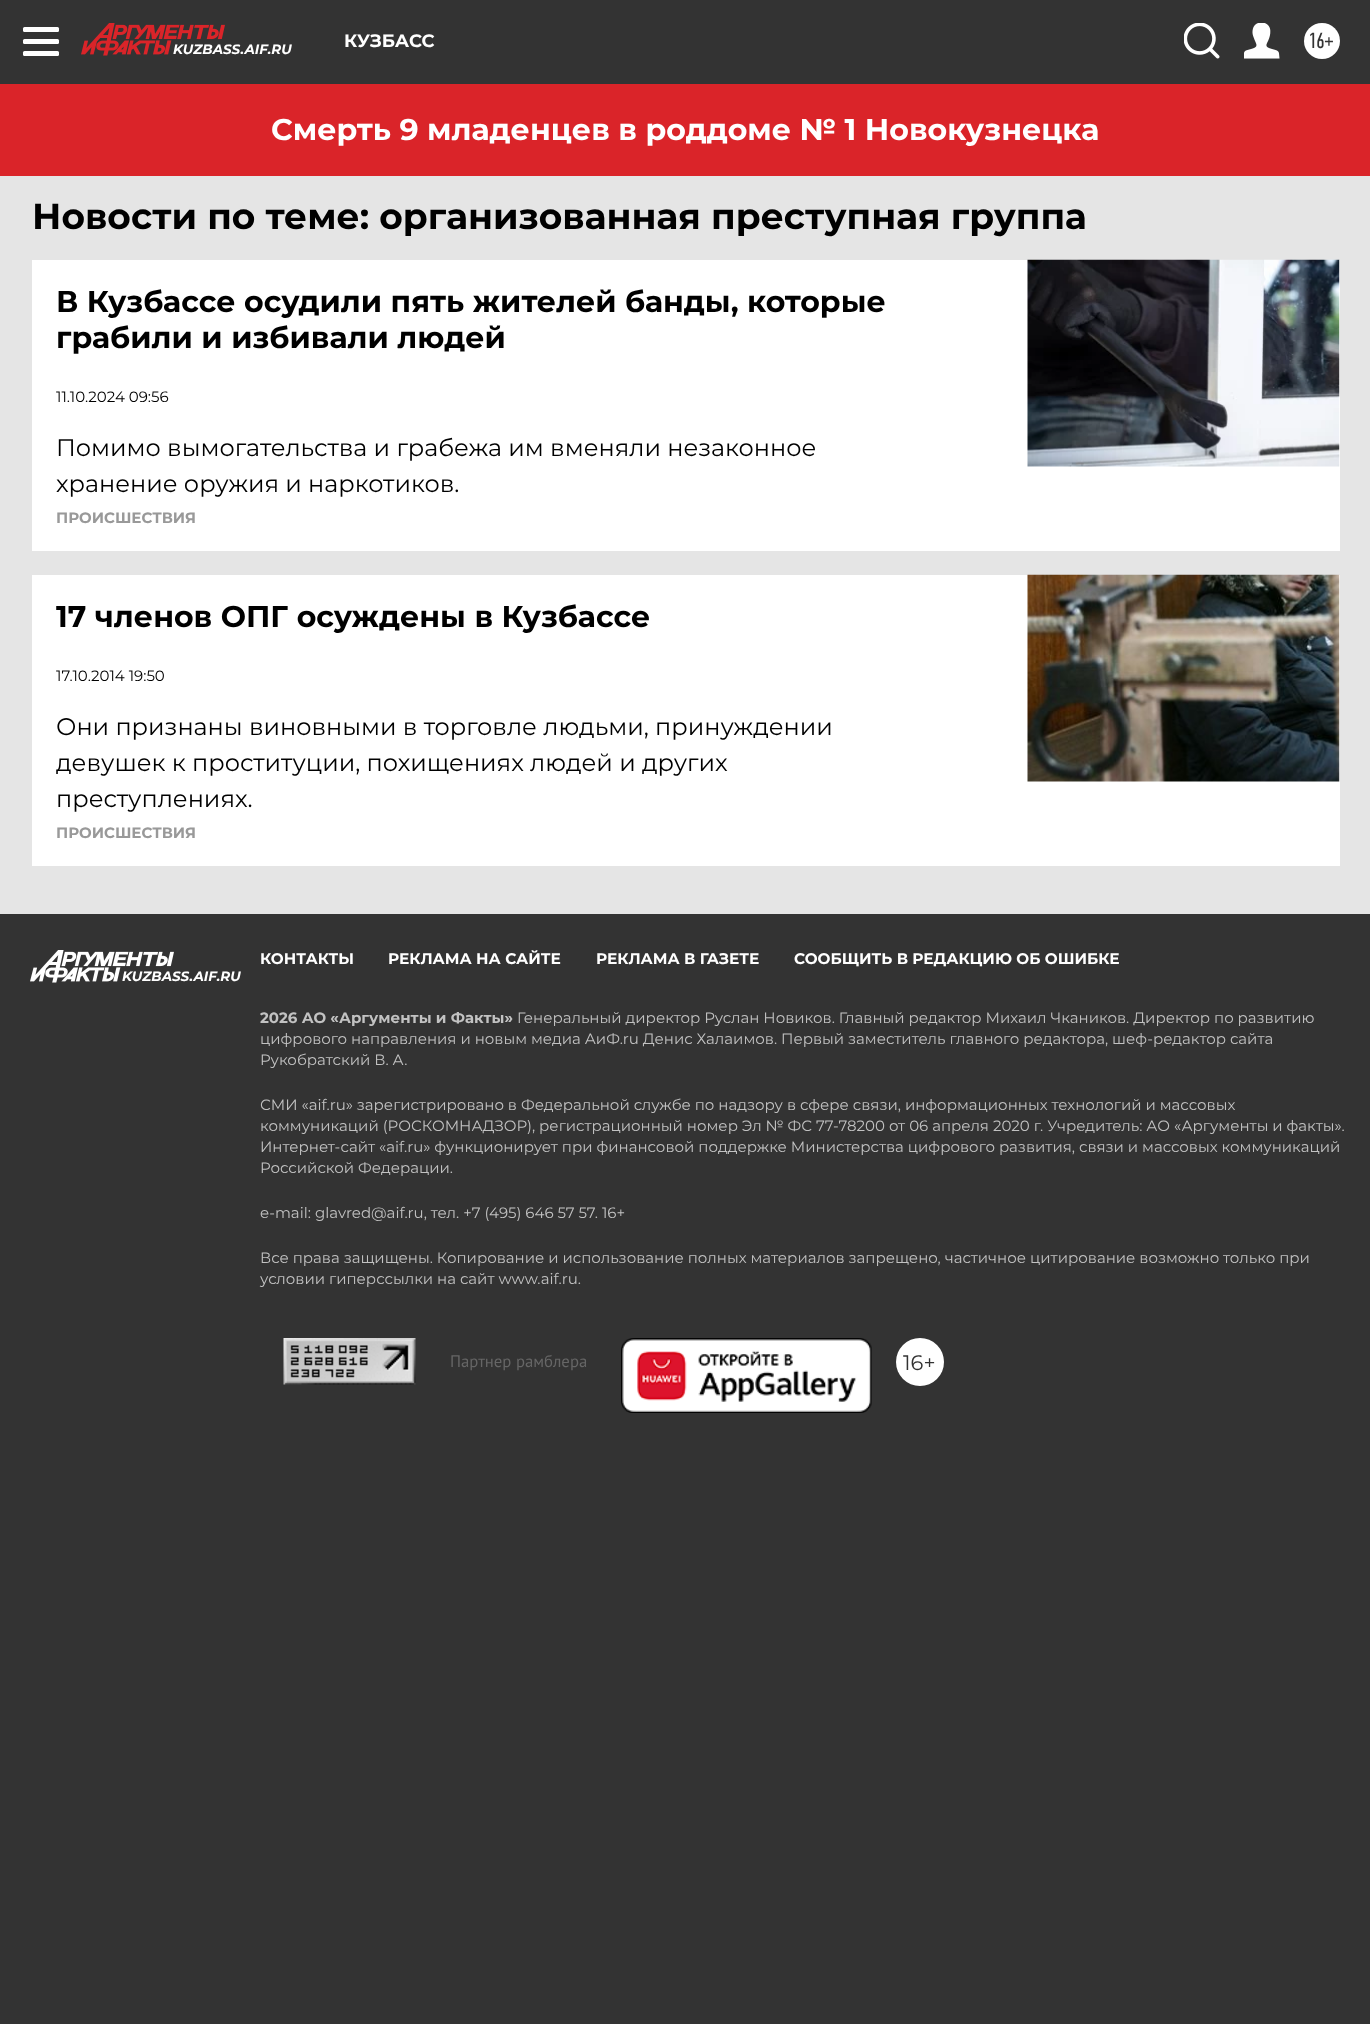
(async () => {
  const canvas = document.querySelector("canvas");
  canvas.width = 1370;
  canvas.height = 2024;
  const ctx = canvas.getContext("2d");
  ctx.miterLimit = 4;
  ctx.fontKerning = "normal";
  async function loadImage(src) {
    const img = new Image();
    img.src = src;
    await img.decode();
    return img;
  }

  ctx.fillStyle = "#333333";
  ctx.fillRect(0, 0, 1370, 2024);
  ctx.fillStyle = "#e5e5e5";
  ctx.fillRect(0, 176, 1370, 738);
  ctx.fillStyle = "#ffffff";
  ctx.beginPath();
  ctx.roundRect(23, 27, 36, 5, 1.5);
  ctx.fill();
  ctx.beginPath();
  ctx.roundRect(23, 39, 36, 5, 1.5);
  ctx.fill();
  ctx.beginPath();
  ctx.roundRect(23, 51, 36, 5, 1.5);
  ctx.fill();
  ctx.drawImage(await loadImage("img/1.png"), 1184, 23, 36, 36);
  ctx.drawImage(await loadImage("img/2.png"), 1244, 23, 36, 36);
  ctx.beginPath();
  ctx.arc(1322, 41, 18, 0, Math.PI * 2);
  ctx.fill();
  ctx.drawImage(await loadImage("img/3.png"), 81, 23, 144, 33);
  ctx.fillStyle = "#da2429";
  ctx.fillRect(0, 84, 1370, 92);
  ctx.fillStyle = "#ffffff";
  ctx.fillRect(32, 260, 1308, 291);
  ctx.drawImage(await loadImage("img/4.png"), 1027, 259, 313, 208);
  ctx.fillRect(32, 575, 1308, 291);
  ctx.drawImage(await loadImage("img/5.png"), 1027, 574, 313, 208);
  ctx.drawImage(await loadImage("img/6.png"), 30, 950, 144, 33);
  ctx.drawImage(await loadImage("img/7.png"), 283, 1338, 133, 47);
  ctx.drawImage(await loadImage("img/8.png"), 621, 1338, 251, 75);
  ctx.beginPath();
  ctx.arc(920, 1362, 24, 0, Math.PI * 2);
  ctx.fill();
  ctx.font = "bold 18px Montserrat";
  ctx.fillText("КУЗБАСС", 344, 47);
  ctx.font = "22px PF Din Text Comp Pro";
  ctx.fillStyle = "#333333";
  ctx.fillText("16+", 1308, 48);
  ctx.font = "italic bold 13.5px Montserrat";
  ctx.fillStyle = "#ffffff";
  ctx.fillText("KUZBASS.AIF.RU", 173, 54);
  ctx.font = "bold 30px Montserrat";
  ctx.fillText("Смерть 9 младенцев в роддоме № 1 Новокузнецка", 271, 140);
  ctx.font = "bold 36px Montserrat";
  ctx.fillStyle = "#000000";
  ctx.fillText("Новости по теме: организованная преступная группа", 32, 229);
  ctx.font = "bold 30px Montserrat";
  ctx.fillText("В Кузбассе осудили пять жителей банды, которые", 56, 312);
  ctx.fillText("грабили и избивали людей", 56, 348);
  ctx.font = "15px Montserrat";
  ctx.fillText("11.10.2024 09:56", 56, 402);
  ctx.font = "24px Montserrat";
  ctx.fillText("Помимо вымогательства и грабежа им вменяли незаконное", 56, 456);
  ctx.fillText("хранение оружия и наркотиков.", 56, 492);
  ctx.font = "bold 15px Montserrat";
  ctx.fillStyle = "#999999";
  ctx.fillText("ПРОИСШЕСТВИЯ", 56, 523);
  ctx.font = "bold 30px Montserrat";
  ctx.fillStyle = "#000000";
  ctx.fillText("17 членов ОПГ осуждены в Кузбассе", 56, 627);
  ctx.font = "15px Montserrat";
  ctx.fillText("17.10.2014 19:50", 56, 681);
  ctx.font = "24px Montserrat";
  for (const [text, x, y] of [
    ["Они признаны виновными в торговле людьми, принуждении", 56, 735],
    ["девушек к проституции, похищениях людей и других", 56, 771],
    ["преступлениях.", 56, 807],
  ]) {
    ctx.fillText(text, x, y);
  }
  ctx.font = "bold 15px Montserrat";
  ctx.fillStyle = "#999999";
  ctx.fillText("ПРОИСШЕСТВИЯ", 56, 838);
  ctx.font = "italic bold 13.5px Montserrat";
  ctx.fillStyle = "#ffffff";
  ctx.fillText("KUZBASS.AIF.RU", 122, 981);
  ctx.font = "bold 15.3px Montserrat";
  for (const [text, x, y] of [
    ["КОНТАКТЫ", 260, 964],
    ["РЕКЛАМА НА САЙТЕ", 388, 964],
    ["РЕКЛАМА В ГАЗЕТЕ", 596, 964],
    ["СООБЩИТЬ В РЕДАКЦИЮ ОБ ОШИБКЕ", 794, 964],
  ]) {
    ctx.fillText(text, x, y);
  }
  ctx.font = "bold 15px Montserrat";
  ctx.fillStyle = "#c2c2c2";
  ctx.fillText("2026 АО «Аргументы и Факты»", 260, 1023);
  ctx.font = "15px Montserrat";
  for (const [text, x, y] of [
    ["Генеральный директор Руслан Новиков. Главный редактор Михаил Чкаников. Директор по развитию", 517, 1023],
    ["цифрового направления и новым медиа АиФ.ru Денис Халаимов. Первый заместитель главного редактора, шеф-редактор сайта", 260, 1044],
    ["Рукобратский В. А.", 260, 1065],
    ["СМИ «aif.ru» зарегистрировано в Федеральной службе по надзору в сфере связи, информационных технологий и массовых", 260, 1110],
    ["коммуникаций (РОСКОМНАДЗОР), регистрационный номер Эл № ФС 77-78200 от 06 апреля 2020 г. Учредитель: АО «Аргументы и факты».", 260, 1131],
    ["Интернет-сайт «aif.ru» функционирует при финансовой поддержке Министерства цифрового развития, связи и массовых коммуникаций", 260, 1152],
    ["Российской Федерации.", 260, 1173],
    ["e-mail: glavred@aif.ru, тел. +7 (495) 646 57 57. 16+", 260, 1218],
    ["Все права защищены. Копирование и использование полных материалов запрещено, частичное цитирование возможно только при", 260, 1263],
    ["условии гиперссылки на сайт www.aif.ru.", 260, 1284],
  ]) {
    ctx.fillText(text, x, y);
  }
  ctx.font = "16.75px PT Sans";
  ctx.fillStyle = "#666666";
  ctx.fillText("Партнер рамблера", 450, 1367);
  ctx.font = "21px Montserrat";
  ctx.fillStyle = "#333333";
  ctx.fillText("16+", 903, 1370);
})();
